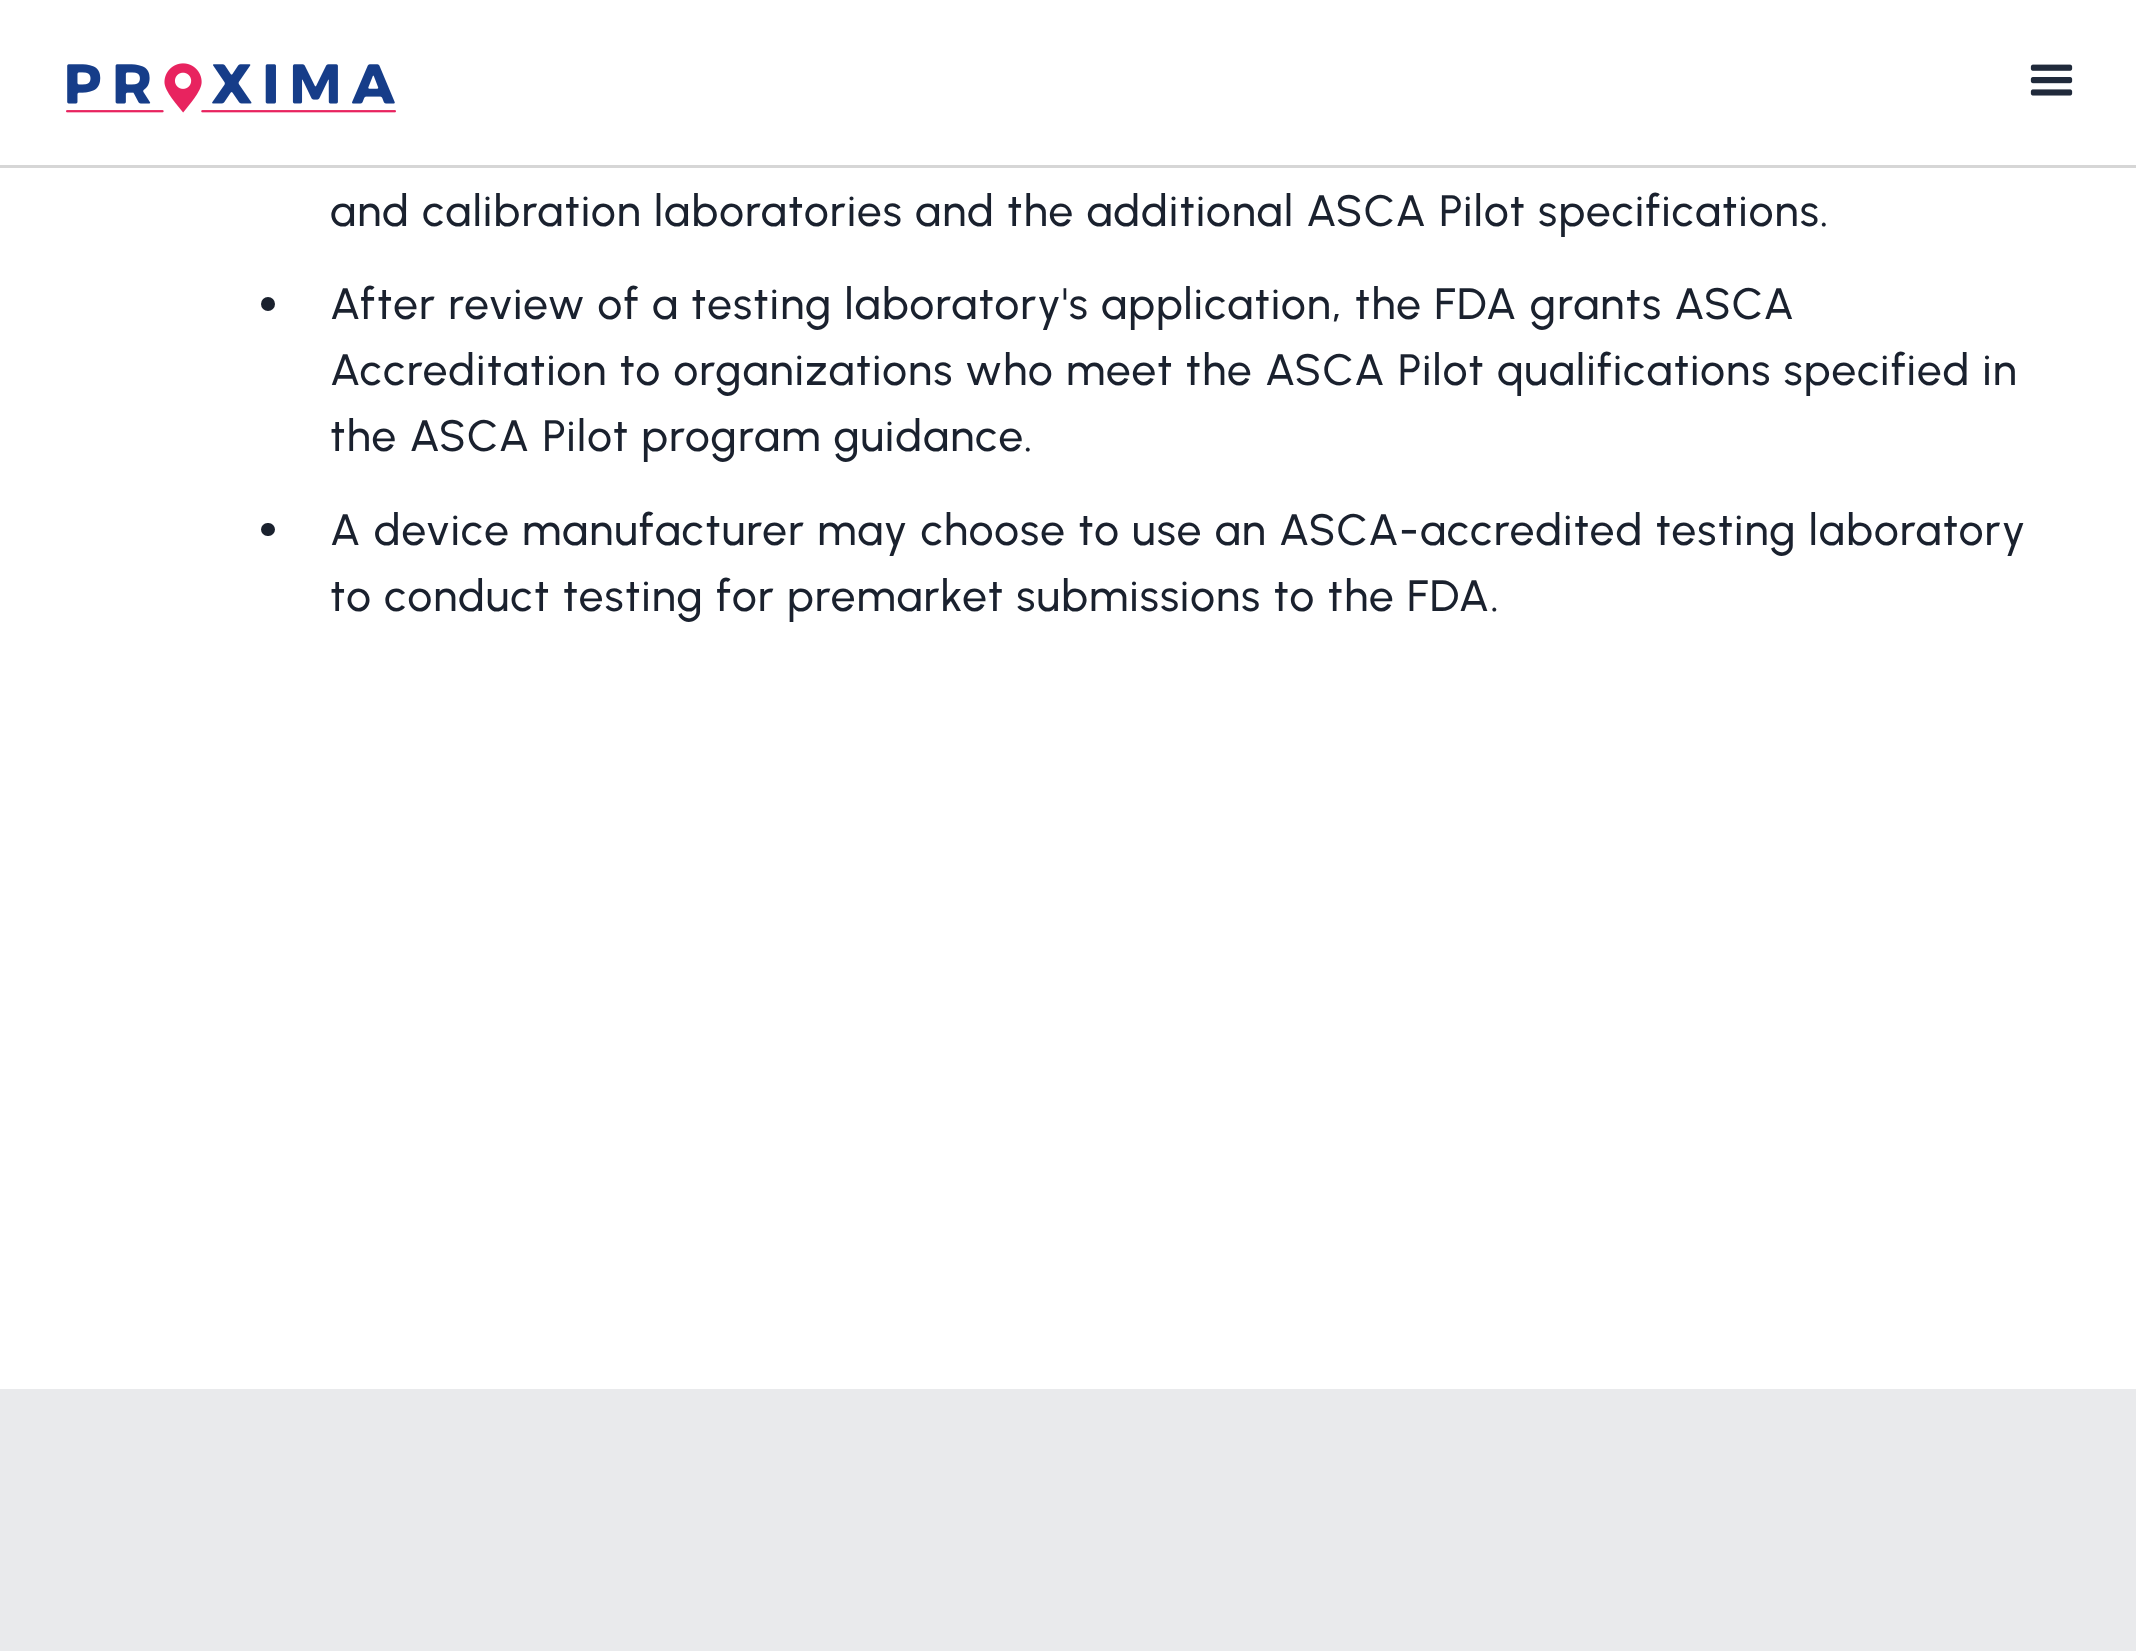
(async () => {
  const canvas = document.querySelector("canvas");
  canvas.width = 2136;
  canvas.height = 1651;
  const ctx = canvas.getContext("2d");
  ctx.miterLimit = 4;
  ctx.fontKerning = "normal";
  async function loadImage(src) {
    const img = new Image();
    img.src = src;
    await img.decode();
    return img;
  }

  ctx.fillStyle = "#ffffff";
  ctx.fillRect(0, 0, 2136, 1651);
  ctx.fillStyle = "#d6d6d6";
  ctx.fillRect(0, 165, 2136, 3);
  ctx.drawImage(await loadImage("img/1.png"), 66, 63, 330, 50);
  ctx.drawImage(await loadImage("img/2.png"), 2030, 64, 43, 32);
  ctx.fillStyle = "#1a212e";
  ctx.beginPath();
  ctx.arc(268, 304, 7, 0, Math.PI * 2);
  ctx.fill();
  ctx.beginPath();
  ctx.roundRect(261, 523, 14, 13, 6.5);
  ctx.fill();
  ctx.fillStyle = "#e9eaec";
  ctx.fillRect(0, 1389, 2136, 262);
  ctx.letterSpacing = "1.38px";
  ctx.font = "500 44px Urbanist";
  ctx.fillStyle = "#1a212e";
  for (const [text, x, y] of [
    ["and calibration laboratories and the additional ASCA Pilot specifications.", 330, 226],
    ["After review of a testing laboratory's application, the FDA grants ASCA", 330, 319],
    ["Accreditation to organizations who meet the ASCA Pilot qualifications specified in", 330, 385],
    ["the ASCA Pilot program guidance.", 330, 451],
    ["A device manufacturer may choose to use an ASCA-accredited testing laboratory", 330, 545],
    ["to conduct testing for premarket submissions to the FDA.", 330, 611],
  ]) {
    ctx.fillText(text, x, y);
  }
})();
